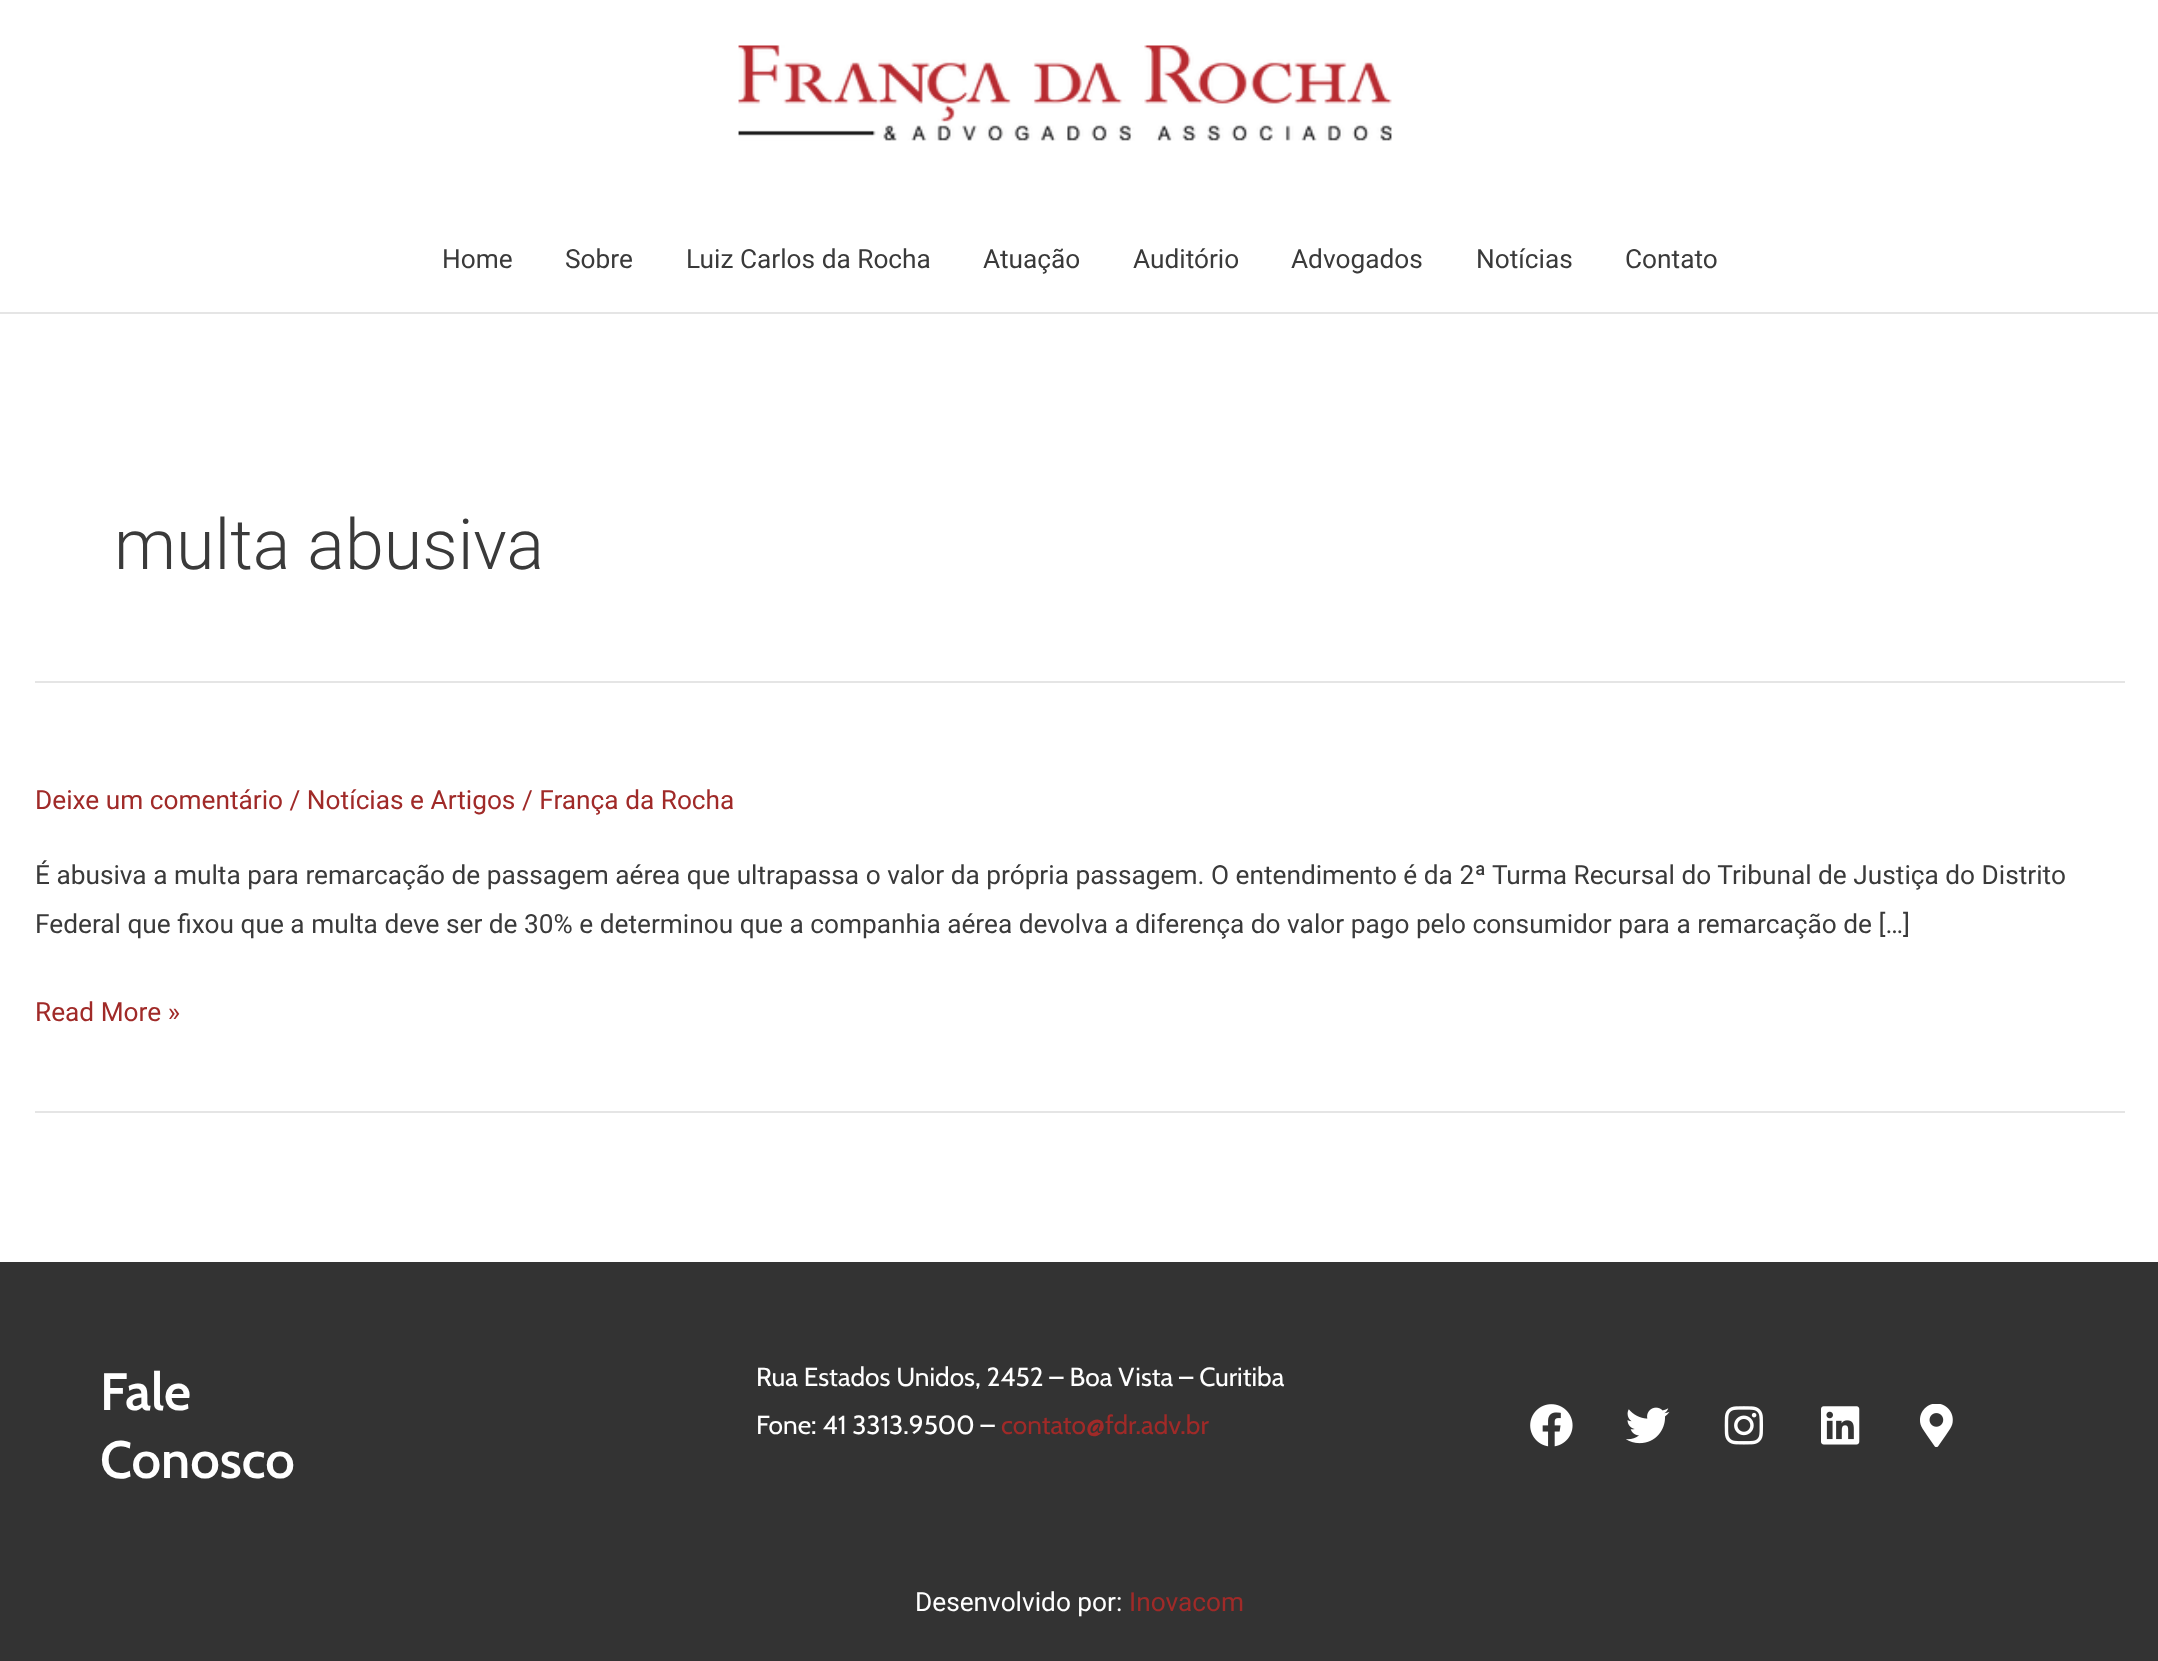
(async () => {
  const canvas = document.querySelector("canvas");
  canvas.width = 2158;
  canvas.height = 1661;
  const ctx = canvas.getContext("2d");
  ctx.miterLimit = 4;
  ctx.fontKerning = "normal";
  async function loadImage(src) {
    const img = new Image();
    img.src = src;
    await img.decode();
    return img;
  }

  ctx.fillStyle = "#ffffff";
  ctx.fillRect(0, 0, 2158, 1661);
  ctx.fillStyle = "#e5e5e5";
  ctx.fillRect(0, 312, 2158, 2);
  ctx.drawImage(await loadImage("img/1.png"), 738, 45, 654, 96);
  for (const [x, y, w, h, color] of [
    [35, 681, 2090, 2, "#e5e5e5"],
    [35, 1111, 2090, 2, "#e5e5e5"],
    [0, 1262, 2158, 399, "#333333"],
  ]) {
    ctx.fillStyle = color;
    ctx.fillRect(x, y, w, h);
  }
  ctx.drawImage(await loadImage("img/2.png"), 1530, 1404, 43, 43);
  ctx.drawImage(await loadImage("img/3.png"), 1626, 1407, 44, 37);
  ctx.drawImage(await loadImage("img/4.png"), 1724, 1406, 40, 39);
  ctx.drawImage(await loadImage("img/5.png"), 1821, 1406, 39, 39);
  ctx.drawImage(await loadImage("img/6.png"), 1920, 1404, 33, 43);
  ctx.font = "26.25px Roboto";
  ctx.fillStyle = "#3a3a3a";
  for (const [text, x, y] of [
    ["Home", 442, 268],
    ["Sobre", 565, 268],
    ["Luiz Carlos da Rocha", 686, 268],
    ["Atuação", 983, 268],
    ["Auditório", 1133, 268],
    ["Advogados", 1291, 268],
    ["Notícias", 1476, 268],
    ["Contato", 1625, 268],
  ]) {
    ctx.fillText(text, x, y);
  }
  ctx.font = "300 70px Roboto";
  ctx.fillText("multa abusiva", 114, 569);
  ctx.font = "26.25px Roboto";
  ctx.fillStyle = "#a02a28";
  ctx.fillText("Deixe um comentário / Notícias e Artigos / França da Rocha", 35, 809);
  ctx.fillStyle = "#3a3a3a";
  ctx.fillText("É abusiva a multa para remarcação de passagem aérea que ultrapassa o valor da própria passagem. O entendimento é da 2ª Turma Recursal do Tribunal de Justiça do Distrito", 35, 884);
  ctx.fillText("Federal que fixou que a multa deve ser de 30% e determinou que a companhia aérea devolva a diferença do valor pago pelo consumidor para a remarcação de […]", 35, 933);
  ctx.fillStyle = "#a02a28";
  ctx.fillText("Read More »", 35, 1021);
  ctx.font = "600 52.5px Cabin";
  ctx.fillStyle = "#ffffff";
  ctx.fillText("Fale", 100, 1410);
  ctx.fillText("Conosco", 100, 1478);
  ctx.font = "26.25px Cabin";
  ctx.fillText("Rua Estados Unidos, 2452 – Boa Vista – Curitiba", 756, 1386);
  ctx.fillText("Fone: 41 3313.9500 –", 756, 1434);
  ctx.fillStyle = "#a02a28";
  ctx.fillText("contato@fdr.adv.br", 1001, 1434);
  ctx.font = "26.25px Roboto";
  ctx.fillStyle = "#ffffff";
  ctx.fillText("Desenvolvido por:", 915, 1611);
  ctx.fillStyle = "#a02a28";
  ctx.fillText("Inovacom", 1129, 1611);
})();
